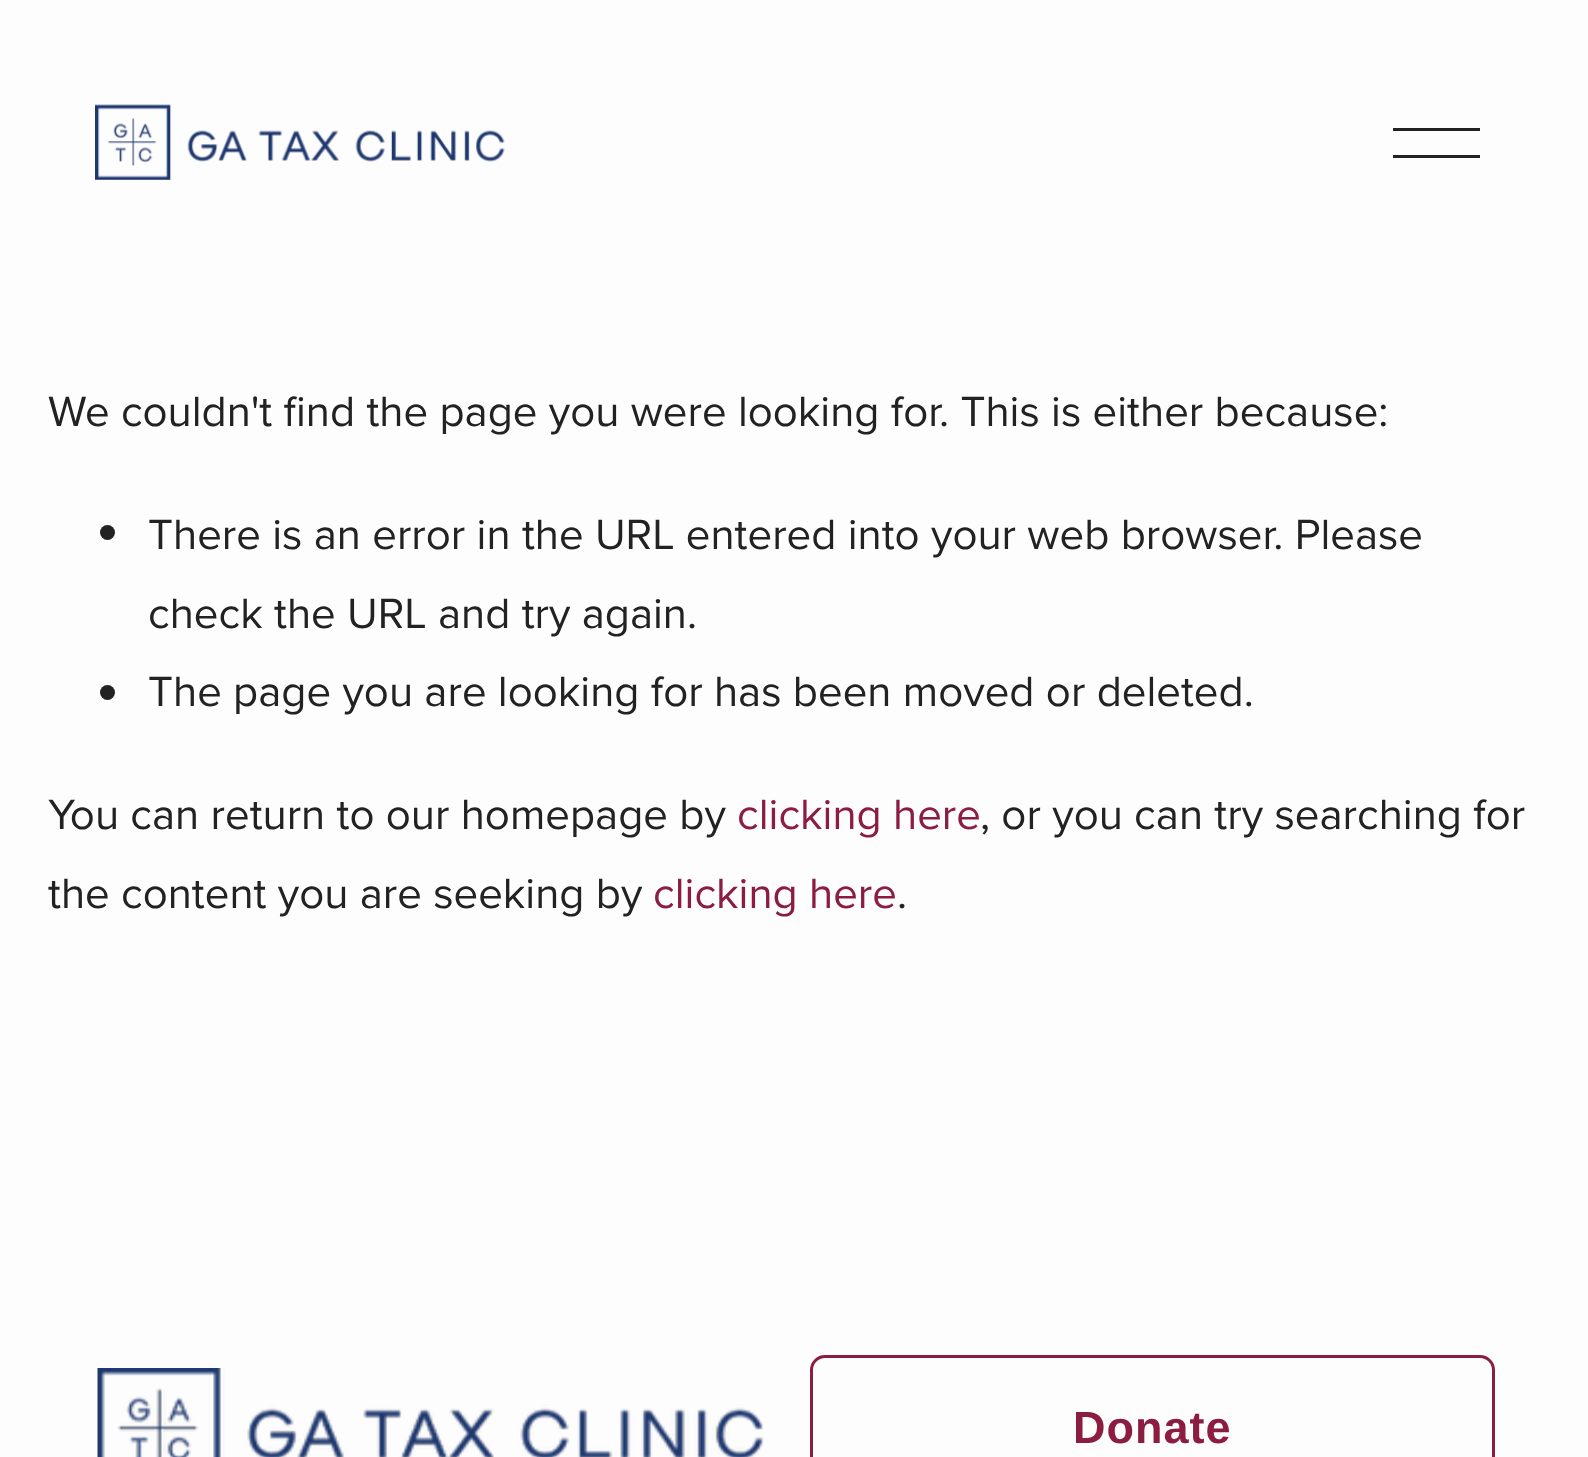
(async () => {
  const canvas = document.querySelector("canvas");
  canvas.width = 1588;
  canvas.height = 1457;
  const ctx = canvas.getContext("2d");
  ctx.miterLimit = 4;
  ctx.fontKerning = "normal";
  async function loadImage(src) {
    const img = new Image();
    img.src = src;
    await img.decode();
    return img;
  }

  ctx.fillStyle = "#fdfdfd";
  ctx.fillRect(0, 0, 1588, 1457);
  ctx.drawImage(await loadImage("img/1.png"), 95, 104, 410, 76);
  ctx.fillStyle = "#222222";
  ctx.fillRect(1393, 128, 87, 3);
  ctx.fillRect(1393, 155, 87, 3);
  ctx.beginPath();
  ctx.arc(107.5, 532.5, 7.5, 0, Math.PI * 2);
  ctx.fill();
  ctx.beginPath();
  ctx.arc(107.5, 692.5, 7.5, 0, Math.PI * 2);
  ctx.fill();
  ctx.drawImage(await loadImage("img/2.png"), 97, 1368, 667, 89);
  ctx.beginPath();
  ctx.roundRect(811.5, 1356.5, 682, 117, 13.5);
  ctx.strokeStyle = "#8c1c40";
  ctx.lineWidth = 3;
  ctx.stroke();
  ctx.font = "43.8px Proxima Nova";
  for (const [text, x, y] of [
    ["We couldn't find the page you were looking for. This is either because:", 48, 426],
    ["There is an error in the URL entered into your web browser. Please", 148, 549],
    ["check the URL and try again.", 148, 628],
    ["The page you are looking for has been moved or deleted.", 148, 706],
    ["You can return to our homepage by", 48, 829],
  ]) {
    ctx.fillText(text, x, y);
  }
  ctx.fillStyle = "#8c1c40";
  ctx.fillText("clicking here", 737, 829);
  ctx.fillStyle = "#222222";
  ctx.fillText(", or you can try searching for", 980, 829);
  ctx.fillText("the content you are seeking by", 48, 908);
  ctx.fillStyle = "#8c1c40";
  ctx.fillText("clicking here", 653, 908);
  ctx.fillStyle = "#222222";
  ctx.fillText(".", 897, 908);
  ctx.letterSpacing = "1px";
  ctx.font = "bold 45px Liberation Sans";
  ctx.fillStyle = "#8c1c40";
  ctx.fillText("Donate", 1073, 1443);
})();
